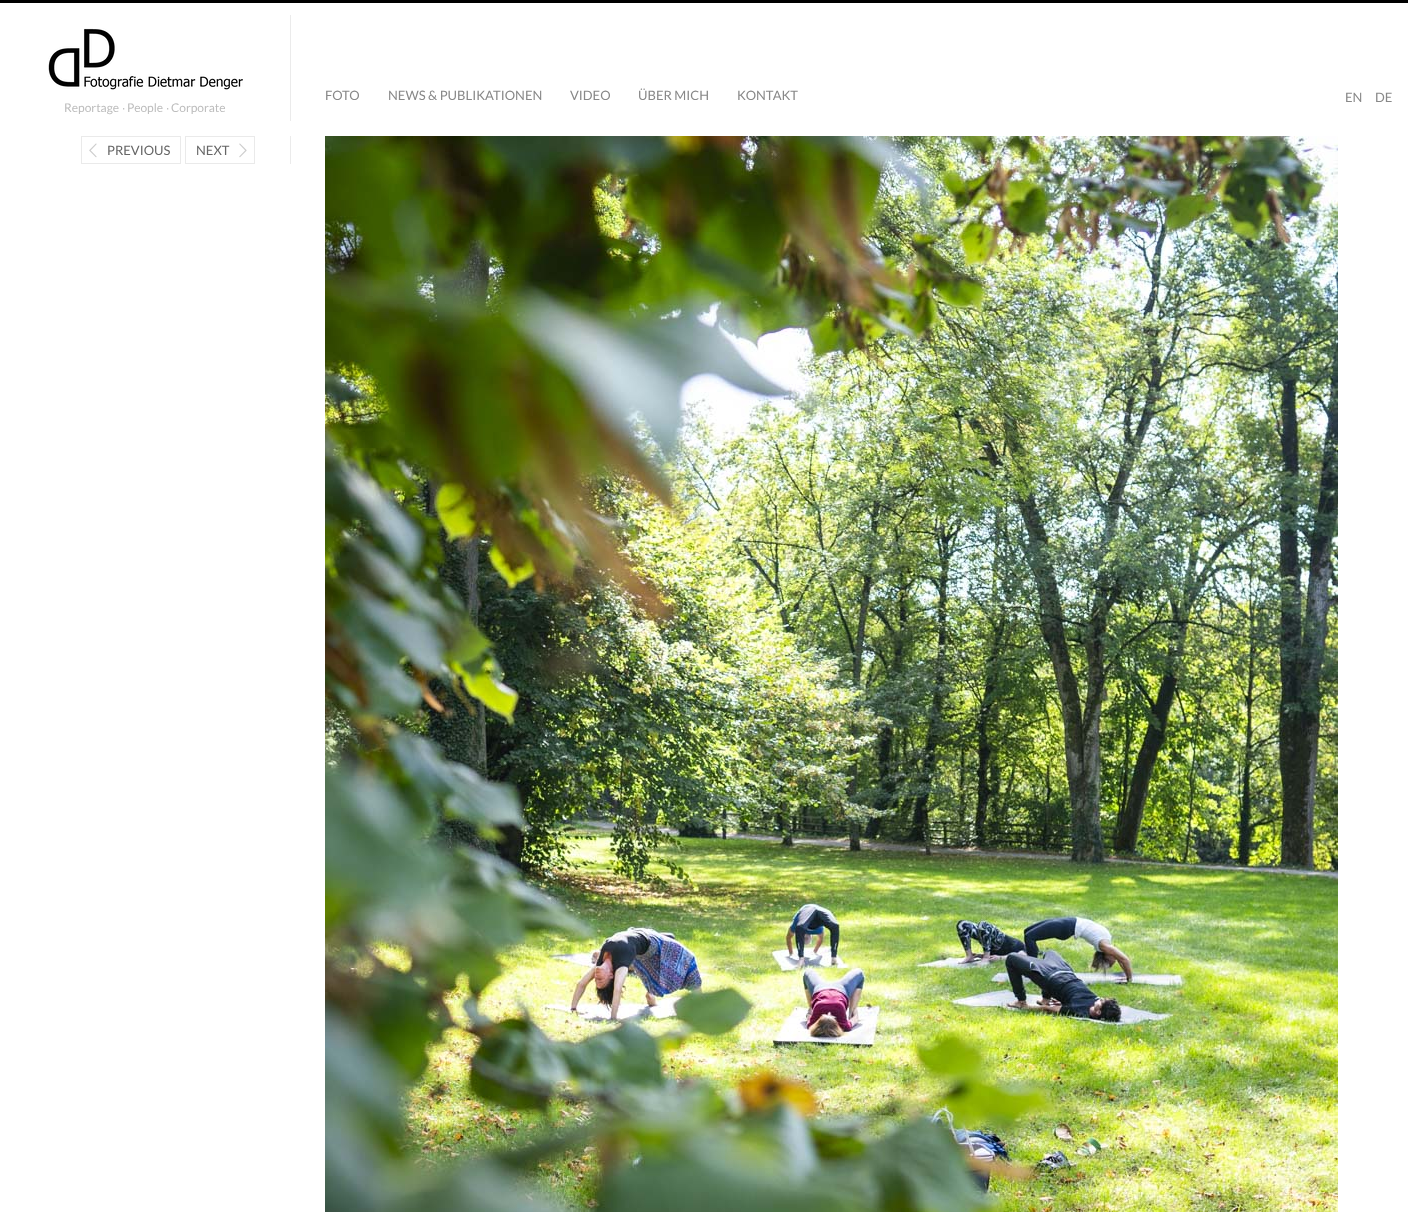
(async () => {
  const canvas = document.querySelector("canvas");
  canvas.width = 1408;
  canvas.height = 1212;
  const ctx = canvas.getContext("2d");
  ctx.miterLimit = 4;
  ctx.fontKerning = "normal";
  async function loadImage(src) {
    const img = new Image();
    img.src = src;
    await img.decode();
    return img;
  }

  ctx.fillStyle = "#ffffff";
  ctx.fillRect(0, 0, 1408, 1212);
  ctx.fillStyle = "#000000";
  ctx.fillRect(0, 0, 1408, 3);
  ctx.fillStyle = "#ebebeb";
  ctx.fillRect(290, 15, 1, 106);
  ctx.drawImage(await loadImage("img/1.png"), 48, 28, 195, 62);
  ctx.fillRect(290, 136, 1, 28);
  ctx.strokeStyle = "#eaeaea";
  ctx.strokeRect(81.5, 136.5, 99, 27);
  ctx.drawImage(await loadImage("img/2.png"), 89, 143, 8, 15);
  ctx.strokeRect(185.5, 136.5, 69, 27);
  ctx.drawImage(await loadImage("img/3.png"), 239, 143, 8, 15);
  ctx.drawImage(await loadImage("img/4.png"), 325, 136, 1013, 1076);
  ctx.font = "13px Lato";
  ctx.fillStyle = "#888888";
  for (const [text, x, y] of [
    ["FOTO", 325, 100],
    ["NEWS & PUBLIKATIONEN", 388, 100],
    ["VIDEO", 570, 100],
    ["ÜBER MICH", 638, 100],
    ["KONTAKT", 737, 100],
    ["EN", 1345, 102],
    ["DE", 1375, 102],
  ]) {
    ctx.fillText(text, x, y);
  }
  ctx.font = "12px Lato";
  ctx.fillStyle = "#bdbdbd";
  ctx.fillText("Reportage", 64, 112);
  ctx.font = "12px Liberation Sans";
  ctx.fillText("∙", 122, 112);
  ctx.font = "12px Lato";
  ctx.fillText("People", 127, 112);
  ctx.font = "12px Liberation Sans";
  ctx.fillText("∙", 166, 112);
  ctx.font = "12px Lato";
  ctx.fillText("Corporate", 171, 112);
  ctx.font = "13px Lato";
  ctx.fillStyle = "#666666";
  ctx.fillText("PREVIOUS", 107, 155);
  ctx.fillText("NEXT", 196, 155);
})();
